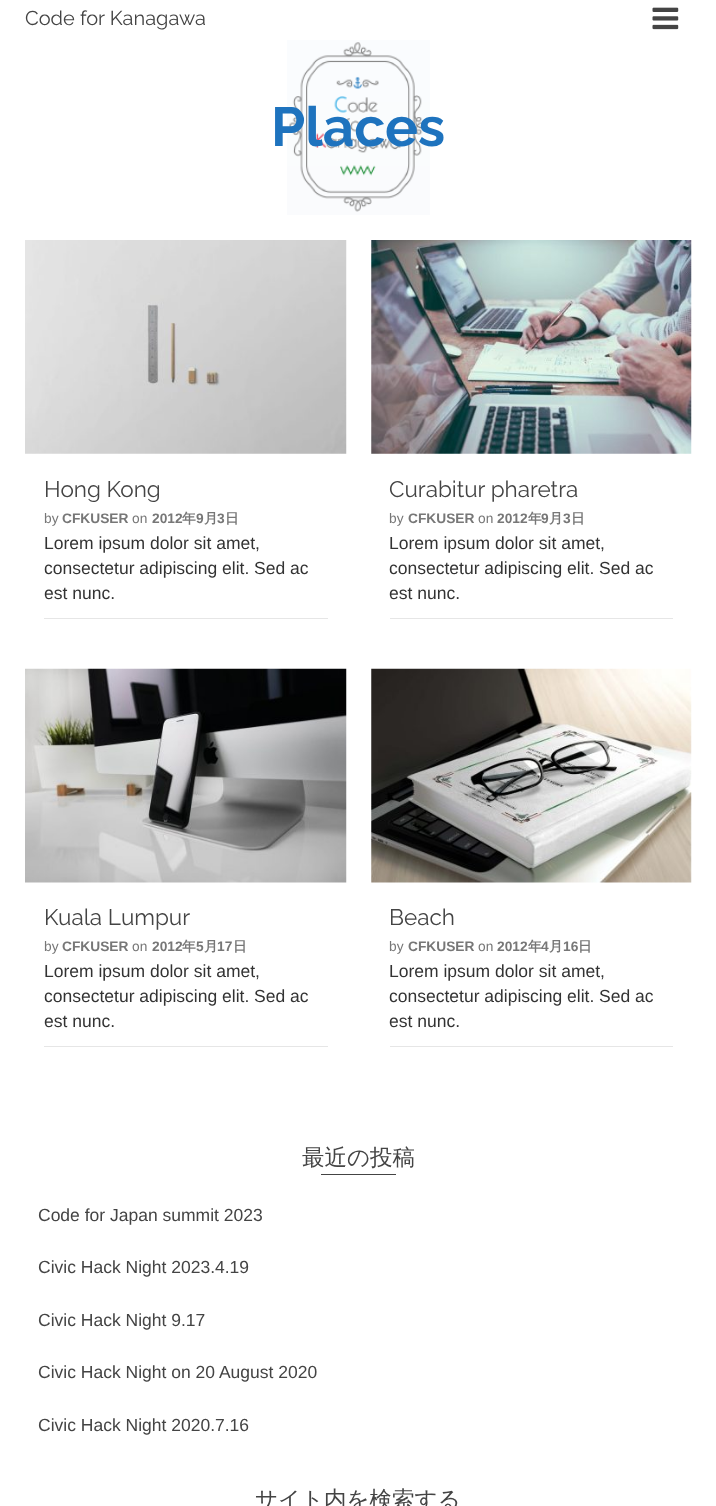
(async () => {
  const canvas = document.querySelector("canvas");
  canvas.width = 716;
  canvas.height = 1506;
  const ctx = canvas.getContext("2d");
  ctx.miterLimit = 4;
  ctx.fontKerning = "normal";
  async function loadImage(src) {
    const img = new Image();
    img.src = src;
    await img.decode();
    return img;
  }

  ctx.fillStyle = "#ffffff";
  ctx.fillRect(0, 0, 716, 1506);
  ctx.drawImage(await loadImage("img/1.png"), 652, 7, 27, 23);
  ctx.drawImage(await loadImage("img/2.png"), 287, 40, 143, 175);
  ctx.drawImage(await loadImage("img/3.png"), 25, 240, 322, 214);
  ctx.fillStyle = "#e6e6e6";
  ctx.fillRect(44, 618, 284, 1);
  ctx.drawImage(await loadImage("img/4.png"), 371, 240, 321, 214);
  ctx.fillRect(390, 618, 283, 1);
  ctx.drawImage(await loadImage("img/5.png"), 25, 668, 322, 215);
  ctx.fillRect(44, 1046, 284, 1);
  ctx.drawImage(await loadImage("img/6.png"), 371, 668, 321, 215);
  ctx.fillRect(390, 1046, 283, 1);
  ctx.fillStyle = "#444444";
  ctx.fillRect(321, 1174, 75, 1);
  ctx.font = "20px Raleway";
  ctx.fillText("Code for Kanagawa", 25, 25);
  ctx.font = "bold 55px Raleway";
  ctx.fillStyle = "#1e73be";
  ctx.fillText("Places", 271, 146);
  ctx.font = "22.5px Raleway";
  ctx.fillStyle = "#444444";
  ctx.fillText("Hong Kong", 44, 497);
  ctx.font = "13.75px Liberation Sans";
  ctx.fillStyle = "#777777";
  ctx.fillText("by", 44, 523);
  ctx.font = "bold 13.75px Liberation Sans";
  ctx.fillText("CFKUSER", 62, 523);
  ctx.font = "13.75px Liberation Sans";
  ctx.fillText("on", 132, 523);
  ctx.font = "bold 13.75px Liberation Sans";
  ctx.fillText("2012", 152, 523);
  ctx.font = "bold 13.75px WenQuanYi Zen Hei";
  ctx.fillText("年", 182, 523);
  ctx.font = "bold 13.75px Liberation Sans";
  ctx.fillText("9", 196, 523);
  ctx.font = "bold 13.75px WenQuanYi Zen Hei";
  ctx.fillText("月", 204, 523);
  ctx.font = "bold 13.75px Liberation Sans";
  ctx.fillText("3", 217, 523);
  ctx.font = "bold 13.75px WenQuanYi Zen Hei";
  ctx.fillText("日", 225, 523);
  ctx.font = "17.5px Liberation Sans";
  ctx.fillStyle = "#333333";
  for (const [text, x, y] of [
    ["Lorem ipsum dolor sit amet,", 44, 549],
    ["consectetur adipiscing elit. Sed ac", 44, 574],
    ["est nunc.", 44, 599],
  ]) {
    ctx.fillText(text, x, y);
  }
  ctx.font = "22.5px Raleway";
  ctx.fillStyle = "#444444";
  ctx.fillText("Curabitur pharetra", 389, 497);
  ctx.font = "13.75px Liberation Sans";
  ctx.fillStyle = "#777777";
  ctx.fillText("by", 389, 523);
  ctx.font = "bold 13.75px Liberation Sans";
  ctx.fillText("CFKUSER", 408, 523);
  ctx.font = "13.75px Liberation Sans";
  ctx.fillText("on", 478, 523);
  ctx.font = "bold 13.75px Liberation Sans";
  ctx.fillText("2012", 497, 523);
  ctx.font = "bold 13.75px WenQuanYi Zen Hei";
  ctx.fillText("年", 528, 523);
  ctx.font = "bold 13.75px Liberation Sans";
  ctx.fillText("9", 541, 523);
  ctx.font = "bold 13.75px WenQuanYi Zen Hei";
  ctx.fillText("月", 549, 523);
  ctx.font = "bold 13.75px Liberation Sans";
  ctx.fillText("3", 563, 523);
  ctx.font = "bold 13.75px WenQuanYi Zen Hei";
  ctx.fillText("日", 571, 523);
  ctx.font = "17.5px Liberation Sans";
  ctx.fillStyle = "#333333";
  for (const [text, x, y] of [
    ["Lorem ipsum dolor sit amet,", 389, 549],
    ["consectetur adipiscing elit. Sed ac", 389, 574],
    ["est nunc.", 389, 599],
  ]) {
    ctx.fillText(text, x, y);
  }
  ctx.font = "22.5px Raleway";
  ctx.fillStyle = "#444444";
  ctx.fillText("Kuala Lumpur", 44, 925);
  ctx.font = "13.75px Liberation Sans";
  ctx.fillStyle = "#777777";
  ctx.fillText("by", 44, 951);
  ctx.font = "bold 13.75px Liberation Sans";
  ctx.fillText("CFKUSER", 62, 951);
  ctx.font = "13.75px Liberation Sans";
  ctx.fillText("on", 132, 951);
  ctx.font = "bold 13.75px Liberation Sans";
  ctx.fillText("2012", 152, 951);
  ctx.font = "bold 13.75px WenQuanYi Zen Hei";
  ctx.fillText("年", 182, 951);
  ctx.font = "bold 13.75px Liberation Sans";
  ctx.fillText("5", 196, 951);
  ctx.font = "bold 13.75px WenQuanYi Zen Hei";
  ctx.fillText("月", 204, 951);
  ctx.font = "bold 13.75px Liberation Sans";
  ctx.fillText("17", 217, 951);
  ctx.font = "bold 13.75px WenQuanYi Zen Hei";
  ctx.fillText("日", 233, 951);
  ctx.font = "17.5px Liberation Sans";
  ctx.fillStyle = "#333333";
  for (const [text, x, y] of [
    ["Lorem ipsum dolor sit amet,", 44, 977],
    ["consectetur adipiscing elit. Sed ac", 44, 1002],
    ["est nunc.", 44, 1027],
  ]) {
    ctx.fillText(text, x, y);
  }
  ctx.font = "22.5px Raleway";
  ctx.fillStyle = "#444444";
  ctx.fillText("Beach", 389, 925);
  ctx.font = "13.75px Liberation Sans";
  ctx.fillStyle = "#777777";
  ctx.fillText("by", 389, 951);
  ctx.font = "bold 13.75px Liberation Sans";
  ctx.fillText("CFKUSER", 408, 951);
  ctx.font = "13.75px Liberation Sans";
  ctx.fillText("on", 478, 951);
  ctx.font = "bold 13.75px Liberation Sans";
  ctx.fillText("2012", 497, 951);
  ctx.font = "bold 13.75px WenQuanYi Zen Hei";
  ctx.fillText("年", 528, 951);
  ctx.font = "bold 13.75px Liberation Sans";
  ctx.fillText("4", 541, 951);
  ctx.font = "bold 13.75px WenQuanYi Zen Hei";
  ctx.fillText("月", 549, 951);
  ctx.font = "bold 13.75px Liberation Sans";
  ctx.fillText("16", 563, 951);
  ctx.font = "bold 13.75px WenQuanYi Zen Hei";
  ctx.fillText("日", 578, 951);
  ctx.font = "17.5px Liberation Sans";
  ctx.fillStyle = "#333333";
  for (const [text, x, y] of [
    ["Lorem ipsum dolor sit amet,", 389, 977],
    ["consectetur adipiscing elit. Sed ac", 389, 1002],
    ["est nunc.", 389, 1027],
  ]) {
    ctx.fillText(text, x, y);
  }
  ctx.font = "500 22.5px WenQuanYi Zen Hei";
  ctx.fillStyle = "#444444";
  ctx.fillText("最近の投稿", 302, 1165);
  ctx.font = "17.5px Liberation Sans";
  for (const [text, x, y] of [
    ["Code for Japan summit 2023", 38, 1221],
    ["Civic Hack Night 2023.4.19", 38, 1273],
    ["Civic Hack Night 9.17", 38, 1326],
    ["Civic Hack Night on 20 August 2020", 38, 1378],
    ["Civic Hack Night 2020.7.16", 38, 1431],
  ]) {
    ctx.fillText(text, x, y);
  }
  ctx.font = "500 22.5px WenQuanYi Zen Hei";
  ctx.fillText("サイト内を検索する", 255, 1507);
})();
